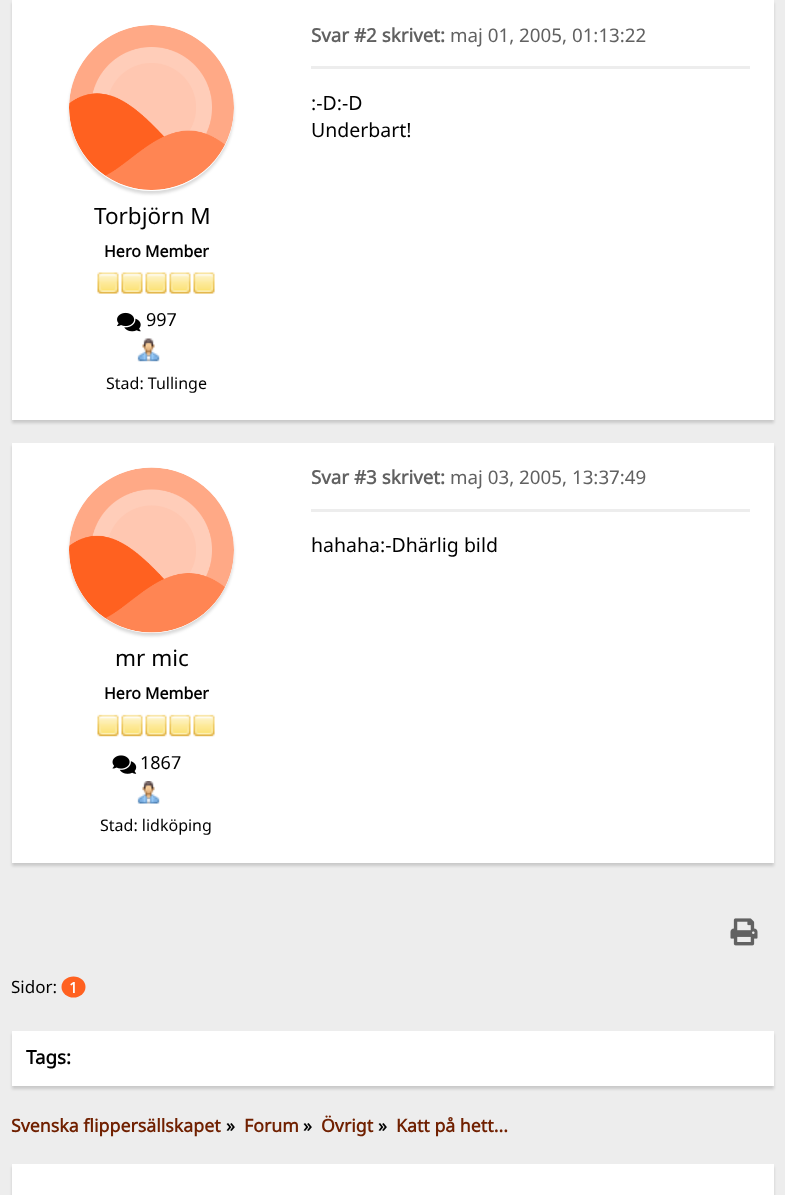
(async () => {
  const canvas = document.querySelector("canvas");
  canvas.width = 785;
  canvas.height = 1195;
  const ctx = canvas.getContext("2d");
  ctx.miterLimit = 4;
  ctx.fontKerning = "normal";
  async function loadImage(src) {
    const img = new Image();
    img.src = src;
    await img.decode();
    return img;
  }

  ctx.fillStyle = "#ededed";
  ctx.fillRect(0, 0, 785, 1195);
  ctx.fillStyle = "rgba(0, 0, 0, 0.15)";
  ctx.filter = "blur(1.5px)";
  ctx.beginPath();
  ctx.rect(12, 3, 762, 420);
  ctx.fill();
  ctx.filter = "none";
  ctx.fillStyle = "#ffffff";
  ctx.fillRect(12, 0, 762, 420);
  ctx.fillStyle = "#ededed";
  ctx.fillRect(311, 66, 439, 3);
  ctx.fillStyle = "rgba(0, 0, 0, 0.15)";
  ctx.filter = "blur(1.5px)";
  ctx.beginPath();
  ctx.roundRect(69, 29, 165, 165, 82.5);
  ctx.fill();
  ctx.filter = "none";
  ctx.fillStyle = "#ffffff";
  ctx.beginPath();
  ctx.arc(151.5, 108.5, 82.5, 0, Math.PI * 2);
  ctx.fill();
  ctx.drawImage(await loadImage("img/1.png"), 69, 25, 165, 165);
  ctx.drawImage(await loadImage("img/2.png"), 97, 272, 22, 22);
  ctx.drawImage(await loadImage("img/2.png"), 121, 272, 22, 22);
  ctx.drawImage(await loadImage("img/2.png"), 145, 272, 22, 22);
  ctx.drawImage(await loadImage("img/2.png"), 169, 272, 22, 22);
  ctx.drawImage(await loadImage("img/2.png"), 193, 272, 22, 22);
  ctx.drawImage(await loadImage("img/3.png"), 117, 312, 24, 20);
  ctx.drawImage(await loadImage("img/4.png"), 137, 338, 23, 24);
  ctx.fillStyle = "rgba(0, 0, 0, 0.15)";
  ctx.filter = "blur(1.5px)";
  ctx.beginPath();
  ctx.rect(12, 446, 762, 420);
  ctx.fill();
  ctx.filter = "none";
  ctx.fillStyle = "#ffffff";
  ctx.fillRect(12, 443, 762, 420);
  ctx.fillStyle = "#ededed";
  ctx.fillRect(311, 509, 439, 3);
  ctx.fillStyle = "rgba(0, 0, 0, 0.15)";
  ctx.filter = "blur(1.5px)";
  ctx.beginPath();
  ctx.roundRect(69, 471, 165, 165, 82.5);
  ctx.fill();
  ctx.filter = "none";
  ctx.fillStyle = "#ffffff";
  ctx.beginPath();
  ctx.arc(151.5, 550.5, 82.5, 0, Math.PI * 2);
  ctx.fill();
  ctx.drawImage(await loadImage("img/5.png"), 69, 467, 165, 166);
  ctx.drawImage(await loadImage("img/6.png"), 97, 714, 22, 23);
  ctx.drawImage(await loadImage("img/6.png"), 121, 714, 22, 23);
  ctx.drawImage(await loadImage("img/6.png"), 145, 714, 22, 23);
  ctx.drawImage(await loadImage("img/6.png"), 169, 714, 22, 23);
  ctx.drawImage(await loadImage("img/6.png"), 193, 714, 22, 23);
  ctx.drawImage(await loadImage("img/7.png"), 112, 755, 25, 19);
  ctx.drawImage(await loadImage("img/8.png"), 137, 781, 23, 23);
  ctx.drawImage(await loadImage("img/9.png"), 730, 918, 28, 28);
  ctx.fillStyle = "#ff6120";
  ctx.beginPath();
  ctx.ellipse(73.5, 987, 12, 10.5, 0, 0, Math.PI * 2);
  ctx.fill();
  ctx.fillStyle = "rgba(0, 0, 0, 0.15)";
  ctx.filter = "blur(1.5px)";
  ctx.beginPath();
  ctx.rect(12, 1034, 762, 55);
  ctx.fill();
  ctx.filter = "none";
  ctx.fillStyle = "#ffffff";
  ctx.fillRect(12, 1031, 762, 55);
  ctx.fillStyle = "rgba(0, 0, 0, 0.15)";
  ctx.filter = "blur(1.5px)";
  ctx.beginPath();
  ctx.rect(12, 1167, 762, 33);
  ctx.fill();
  ctx.filter = "none";
  ctx.fillStyle = "#ffffff";
  ctx.fillRect(12, 1164, 762, 31);
  ctx.font = "bold 18.75px Noto Sans";
  ctx.fillStyle = "#616161";
  ctx.fillText("Svar #2 skrivet:", 311, 42);
  ctx.font = "18.75px Noto Sans";
  ctx.fillText("maj 01, 2005, 01:13:22", 450, 42);
  ctx.font = "19.5px Noto Sans";
  ctx.fillStyle = "#000000";
  ctx.fillText(":-D:-D", 311, 110);
  ctx.fillText("Underbart!", 311, 137);
  ctx.font = "22.5px Noto Sans";
  ctx.fillText("Torbjörn M", 94, 224);
  ctx.font = "bold 16px Noto Sans";
  ctx.fillText("Hero Member", 104, 257);
  ctx.font = "18px Noto Sans";
  ctx.fillText("997", 146, 326);
  ctx.font = "16px Noto Sans";
  ctx.fillText("Stad: Tullinge", 106, 389);
  ctx.font = "bold 18.75px Noto Sans";
  ctx.fillStyle = "#616161";
  ctx.fillText("Svar #3 skrivet:", 311, 484);
  ctx.font = "18.75px Noto Sans";
  ctx.fillText("maj 03, 2005, 13:37:49", 450, 484);
  ctx.font = "19.5px Noto Sans";
  ctx.fillStyle = "#000000";
  ctx.fillText("hahaha:-Dhärlig bild", 311, 552);
  ctx.font = "22.5px Noto Sans";
  ctx.fillText("mr mic", 115, 666);
  ctx.font = "bold 16px Noto Sans";
  ctx.fillText("Hero Member", 104, 699);
  ctx.font = "18px Noto Sans";
  ctx.fillText("1867", 140, 769);
  ctx.font = "16px Noto Sans";
  ctx.fillText("Stad: lidköping", 100, 831);
  ctx.font = "17px Noto Sans";
  ctx.fillText("Sidor:", 11, 993);
  ctx.font = "bold 15px Noto Sans";
  ctx.fillStyle = "#ffffff";
  ctx.fillText("1", 69, 993);
  ctx.font = "bold 18.75px Noto Sans";
  ctx.fillStyle = "#000000";
  ctx.fillText("Tags:", 26, 1064);
  ctx.font = "bold 17.75px Noto Sans";
  ctx.fillStyle = "#702000";
  ctx.fillText("Svenska flippersällskapet", 11, 1132);
  ctx.fillStyle = "#000000";
  ctx.fillText("»", 226, 1132);
  ctx.fillStyle = "#702000";
  ctx.fillText("Forum", 244, 1132);
  ctx.fillStyle = "#000000";
  ctx.fillText("»", 303, 1132);
  ctx.fillStyle = "#702000";
  ctx.fillText("Övrigt", 321, 1132);
  ctx.fillStyle = "#000000";
  ctx.fillText("»", 378, 1132);
  ctx.fillStyle = "#702000";
  ctx.fillText("Katt på hett...", 396, 1132);
})();
